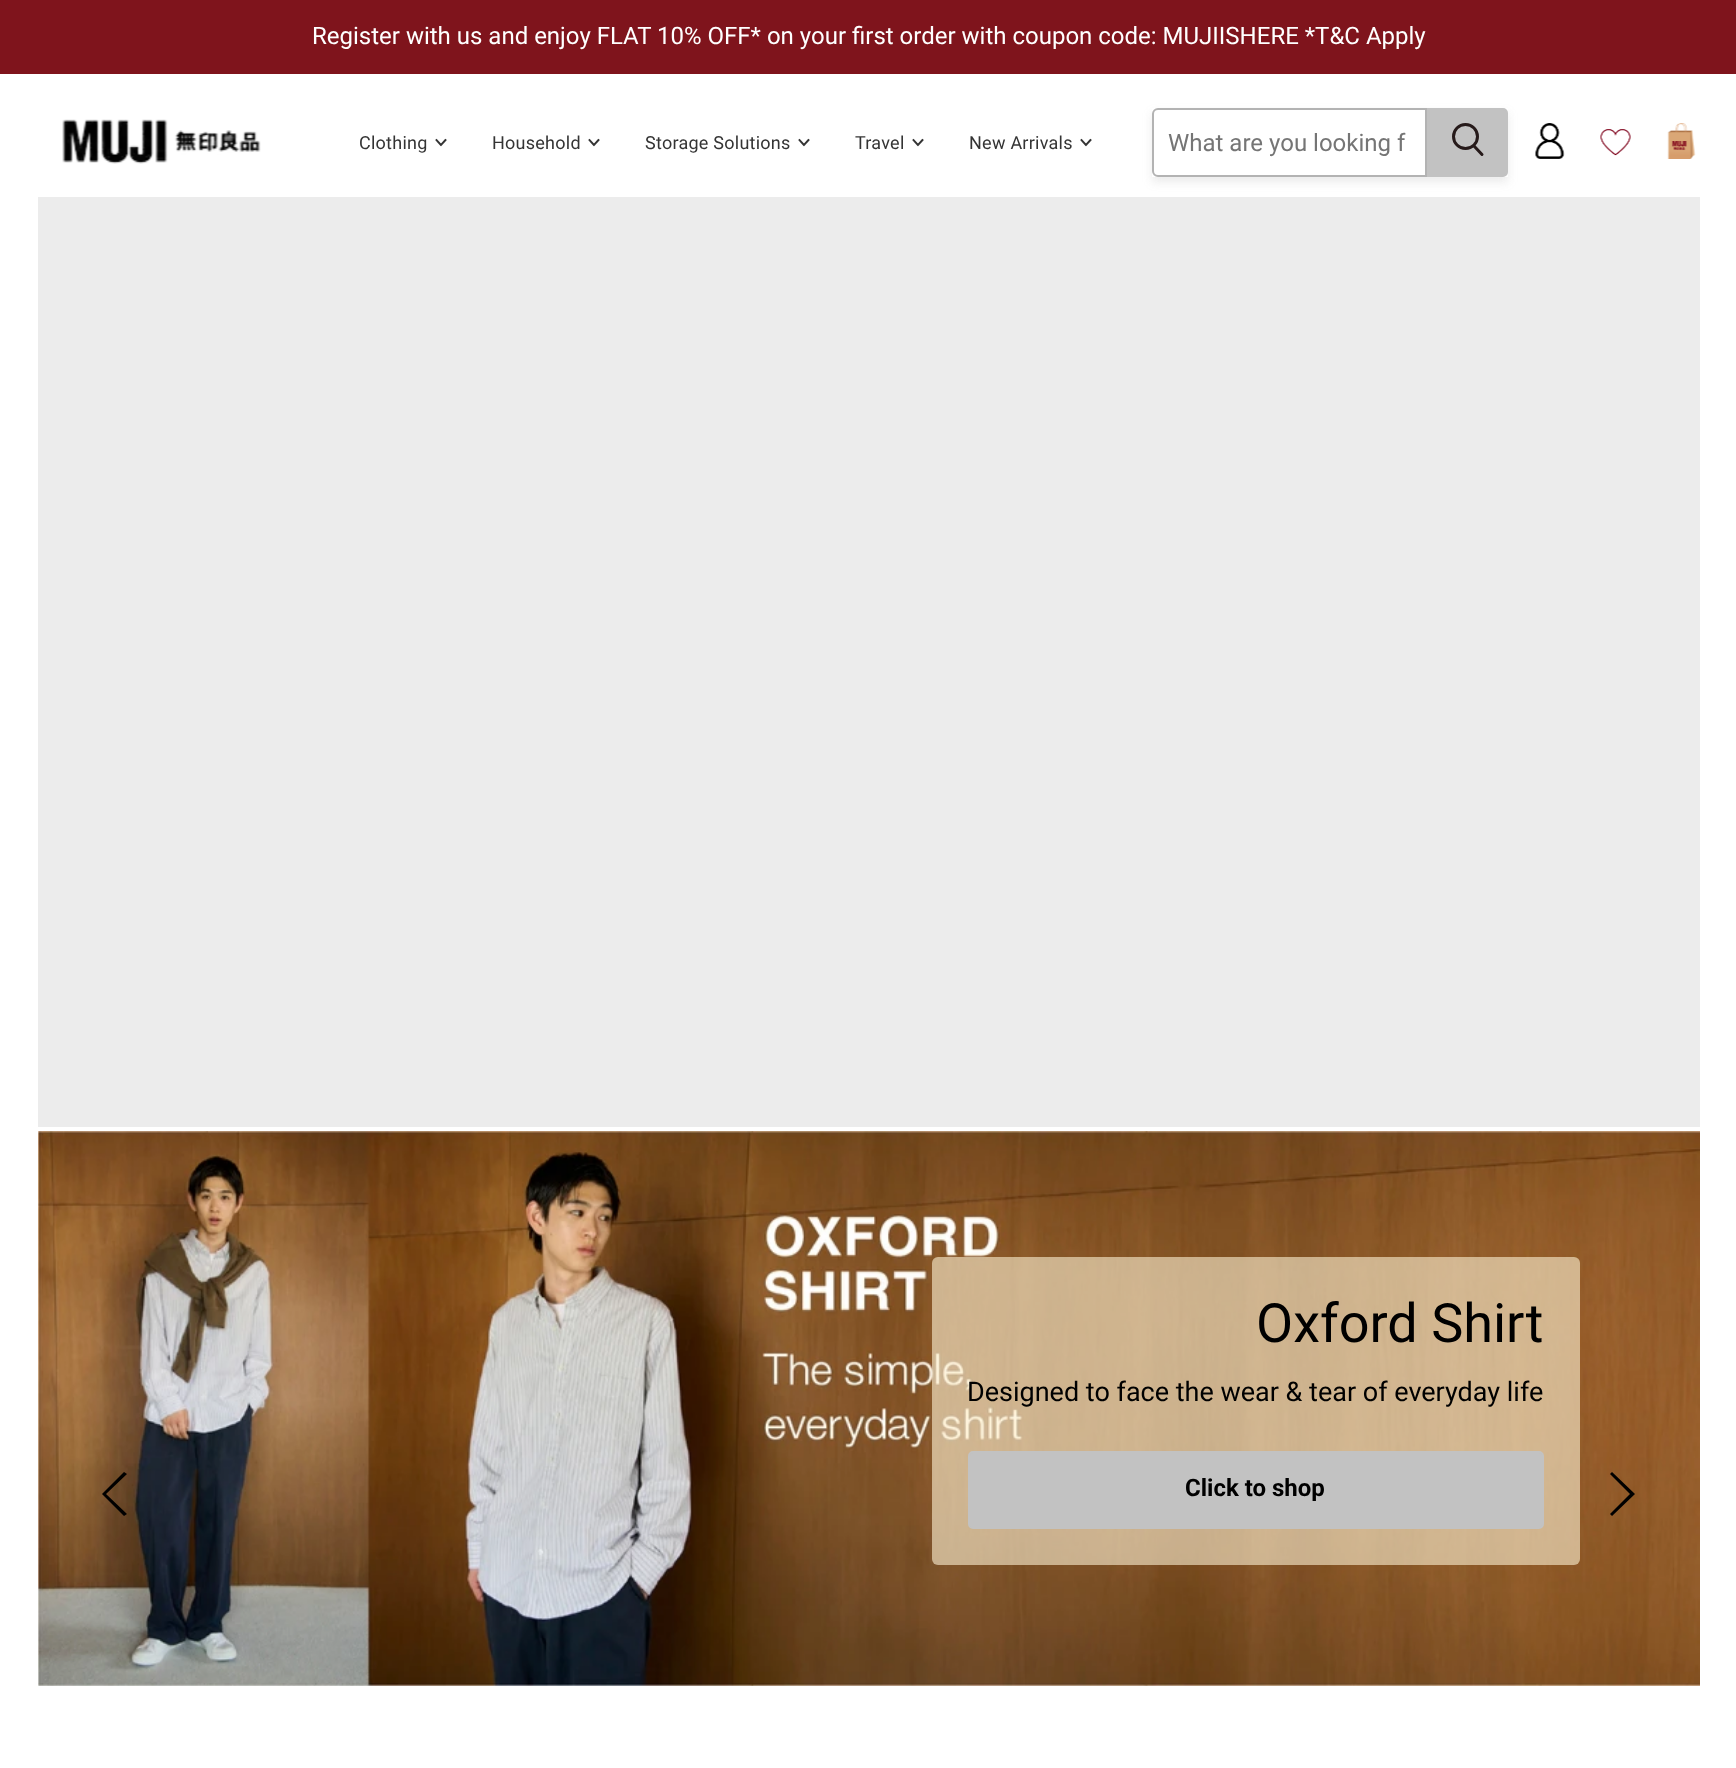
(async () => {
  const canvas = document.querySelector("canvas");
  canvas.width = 1736;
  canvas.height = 1768;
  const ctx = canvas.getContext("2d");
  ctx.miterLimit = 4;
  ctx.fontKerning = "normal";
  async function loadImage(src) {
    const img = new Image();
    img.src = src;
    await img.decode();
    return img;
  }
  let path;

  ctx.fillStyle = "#ffffff";
  ctx.fillRect(0, 0, 1736, 1768);
  ctx.fillStyle = "#7f141c";
  ctx.fillRect(0, 0, 1736, 74);
  ctx.drawImage(await loadImage("img/1.png"), 62, 119, 199, 45);
  path = new Path2D("M441 145L445.5 140M441 145L436.5 140");
  ctx.strokeStyle = "#343434";
  ctx.lineWidth = 1.9;
  ctx.lineCap = "square";
  ctx.stroke(path);
  path = new Path2D("M594 145L598.5 140M594 145L589.5 140");
  ctx.stroke(path);
  path = new Path2D("M804 145L808.5 140M804 145L799.5 140");
  ctx.stroke(path);
  path = new Path2D("M918 145L922.5 140M918 145L913.5 140");
  ctx.stroke(path);
  path = new Path2D("M1086 145L1090.5 140M1086 145L1081.5 140");
  ctx.stroke(path);
  ctx.fillStyle = "#ececec";
  ctx.fillRect(38, 197, 1662, 930);
  ctx.save();
  path = new Path2D("M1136 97H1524V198H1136ZM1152 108H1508V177H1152Z");
  ctx.clip(path, "evenodd");
  ctx.fillStyle = "rgba(128, 128, 128, 0.16)";
  ctx.filter = "blur(5px)";
  ctx.beginPath();
  ctx.rect(1152, 113, 356, 69);
  ctx.fill();
  ctx.filter = "none";
  ctx.restore();
  ctx.beginPath();
  ctx.roundRect(1153, 109, 273, 67, [5, 0, 0, 5]);
  ctx.strokeStyle = "#b3b3b3";
  ctx.lineWidth = 2;
  ctx.stroke();
  ctx.fillStyle = "#c2c2c2";
  ctx.beginPath();
  ctx.roundRect(1428, 109, 79, 67, [0, 4, 4, 0]);
  ctx.fill();
  ctx.strokeStyle = "#c2c2c2";
  ctx.stroke();
  path = new Path2D("M1482 154.5L1474 146");
  ctx.strokeStyle = "#261a1a";
  ctx.lineWidth = 3;
  ctx.lineCap = "round";
  ctx.stroke(path);
  ctx.beginPath();
  ctx.arc(1465.5, 136.5, 12, 0, Math.PI * 2);
  ctx.stroke();
  ctx.drawImage(await loadImage("img/2.png"), 1535, 123, 30, 36);
  ctx.drawImage(await loadImage("img/3.png"), 1600, 129, 31, 27);
  ctx.drawImage(await loadImage("img/4.png"), 1667, 123, 29, 36);
  ctx.drawImage(await loadImage("img/5.png"), 38, 1131, 1662, 555);
  ctx.fillStyle = "rgba(253, 242, 211, 0.6)";
  ctx.beginPath();
  ctx.roundRect(932, 1257, 648, 308, 6);
  ctx.fill();
  ctx.fillStyle = "#c2c2c2";
  ctx.beginPath();
  ctx.roundRect(969, 1452, 574, 76, 4);
  ctx.fill();
  ctx.strokeStyle = "#c2c2c2";
  ctx.lineWidth = 2;
  ctx.stroke();
  ctx.fillStyle = "#000000";
  path = new Path2D("M102 1494L124 1516L127 1514L106 1494L127 1474L124 1472Z");
  ctx.fill(path);
  path = new Path2D("M1635 1494L1612 1472L1610 1474L1630 1494L1610 1514L1612 1516Z");
  ctx.fill(path);
  ctx.font = "24px Roboto";
  ctx.fillStyle = "#ffffff";
  ctx.fillText("Register with us and enjoy FLAT 10% OFF* on your first order with coupon code: MUJIISHERE *T&C Apply", 312, 44);
  ctx.letterSpacing = "0.25px";
  ctx.font = "18px Roboto";
  ctx.fillStyle = "#343434";
  for (const [text, x, y] of [
    ["Clothing", 359, 149],
    ["Household", 492, 149],
    ["Storage Solutions", 645, 149],
    ["Travel", 855, 149],
    ["New Arrivals", 969, 149],
  ]) {
    ctx.fillText(text, x, y);
  }
  ctx.letterSpacing = "0px";
  ctx.font = "24px Roboto";
  ctx.fillStyle = "#757575";
  ctx.fillText("What are you looking f", 1168, 151);
  ctx.font = "54px Roboto";
  ctx.fillStyle = "#000000";
  ctx.fillText("Oxford Shirt", 1256, 1342);
  ctx.font = "27px Roboto";
  ctx.fillText("Designed to face the wear & tear of everyday life", 967, 1401);
  ctx.font = "bold 24px Roboto";
  ctx.fillText("Click to shop", 1185, 1496);
})();
